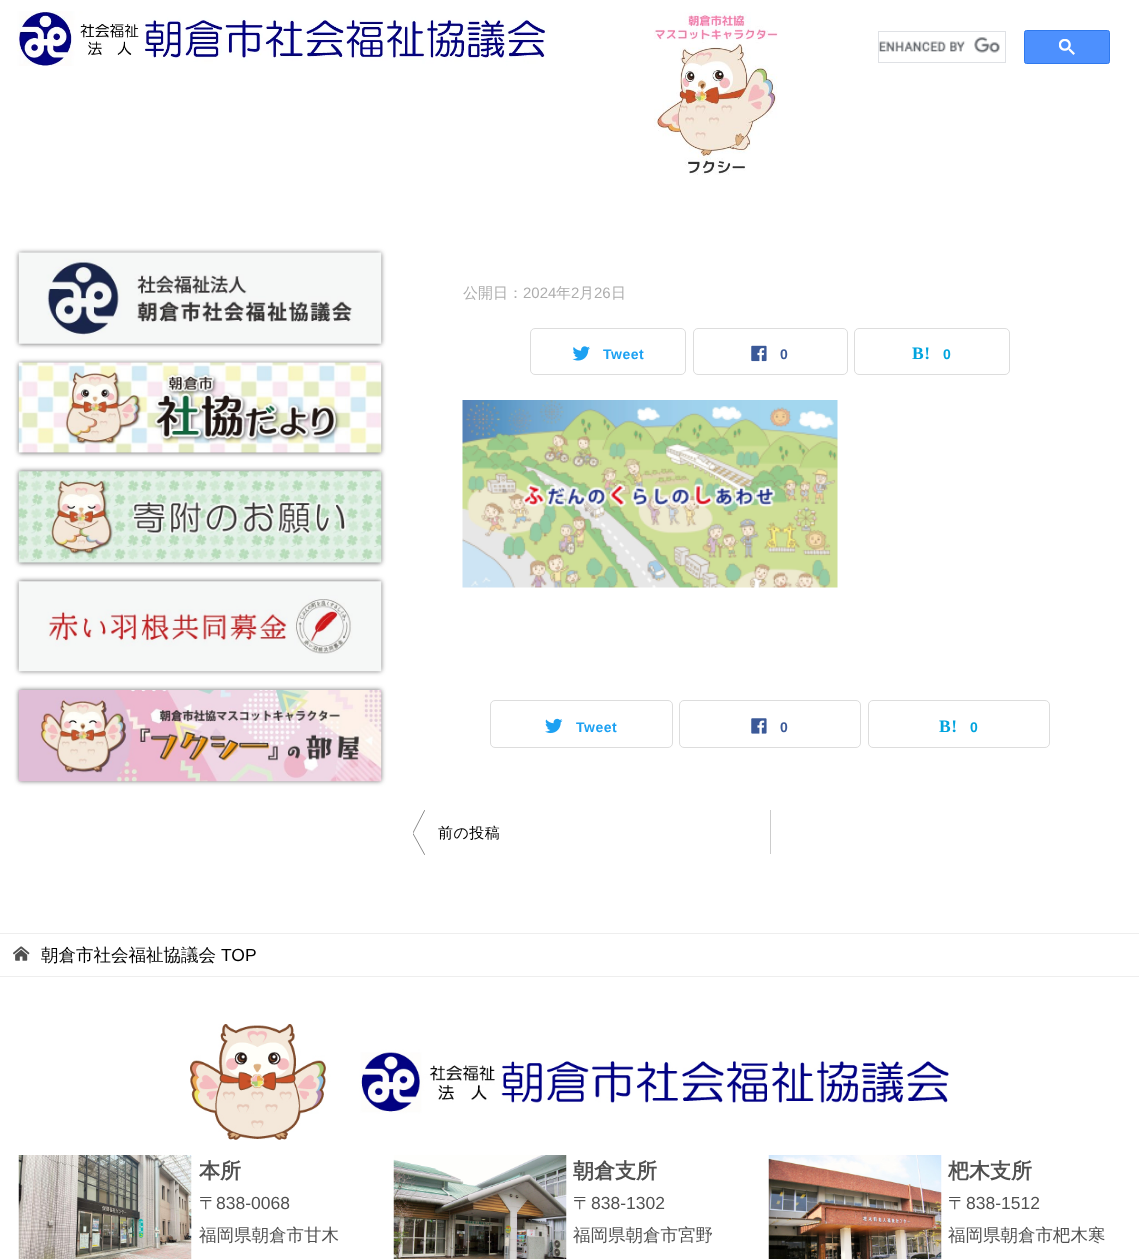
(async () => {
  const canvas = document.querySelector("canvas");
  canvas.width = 1139;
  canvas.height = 1259;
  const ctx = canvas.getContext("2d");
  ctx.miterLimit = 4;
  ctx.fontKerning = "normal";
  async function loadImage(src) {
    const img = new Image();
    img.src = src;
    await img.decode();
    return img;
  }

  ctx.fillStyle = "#ffffff";
  ctx.fillRect(0, 0, 1139, 1259);
  ctx.drawImage(await loadImage("img/1.png"), 17, 11, 532, 55);
  ctx.drawImage(await loadImage("img/2.png"), 653, 12, 125, 163);
  ctx.strokeStyle = "#dfe1e5";
  ctx.strokeRect(878.5, 31.5, 127, 31);
  ctx.drawImage(await loadImage("img/3.png"), 879, 37, 121, 16);
  ctx.fillStyle = "#4d90fe";
  ctx.beginPath();
  ctx.roundRect(1024.5, 30.5, 85, 33, 2);
  ctx.fill();
  ctx.strokeStyle = "#3079ed";
  ctx.stroke();
  ctx.drawImage(await loadImage("img/4.png"), 1059, 39, 16, 16);
  ctx.fillStyle = "#666666";
  ctx.filter = "blur(2.5px)";
  ctx.beginPath();
  ctx.rect(19, 253, 362, 91);
  ctx.fill();
  ctx.filter = "none";
  ctx.drawImage(await loadImage("img/5.png"), 18, 252, 364, 92);
  ctx.filter = "blur(2.5px)";
  ctx.beginPath();
  ctx.rect(19, 363, 362, 90);
  ctx.fill();
  ctx.filter = "none";
  ctx.drawImage(await loadImage("img/6.png"), 18, 362, 364, 91);
  ctx.filter = "blur(2.5px)";
  ctx.beginPath();
  ctx.rect(19, 471, 362, 92);
  ctx.fill();
  ctx.filter = "none";
  ctx.drawImage(await loadImage("img/7.png"), 18, 471, 364, 92);
  ctx.filter = "blur(2.5px)";
  ctx.beginPath();
  ctx.rect(19, 581, 362, 90);
  ctx.fill();
  ctx.filter = "none";
  ctx.drawImage(await loadImage("img/8.png"), 18, 581, 364, 91);
  ctx.filter = "blur(2.5px)";
  ctx.beginPath();
  ctx.rect(19, 690, 362, 91);
  ctx.fill();
  ctx.filter = "none";
  ctx.drawImage(await loadImage("img/9.png"), 18, 690, 364, 92);
  ctx.beginPath();
  ctx.roundRect(530.5, 328.5, 155, 46, 4.5);
  ctx.strokeStyle = "#dddddd";
  ctx.stroke();
  ctx.drawImage(await loadImage("img/10.png"), 572, 346, 18, 15);
  ctx.beginPath();
  ctx.roundRect(693.5, 328.5, 154, 46, 4.5);
  ctx.stroke();
  ctx.drawImage(await loadImage("img/11.png"), 751, 345, 16, 17);
  ctx.beginPath();
  ctx.roundRect(854.5, 328.5, 155, 46, 4.5);
  ctx.stroke();
  ctx.drawImage(await loadImage("img/12.png"), 462, 400, 376, 188);
  ctx.beginPath();
  ctx.roundRect(490.5, 700.5, 182, 47, 4.5);
  ctx.stroke();
  ctx.drawImage(await loadImage("img/13.png"), 545, 718, 18, 16);
  ctx.beginPath();
  ctx.roundRect(679.5, 700.5, 181, 47, 4.5);
  ctx.stroke();
  ctx.drawImage(await loadImage("img/14.png"), 751, 718, 16, 16);
  ctx.beginPath();
  ctx.roundRect(868.5, 700.5, 181, 47, 4.5);
  ctx.stroke();
  ctx.drawImage(await loadImage("img/15.png"), 413, 810, 12, 45);
  for (const [x, y, w, h, color] of [
    [770, 810, 1, 44, "#cccccc"],
    [0, 933, 1139, 1, "#eeeeee"],
    [0, 976, 1139, 1, "#eeeeee"],
  ]) {
    ctx.fillStyle = color;
    ctx.fillRect(x, y, w, h);
  }
  ctx.drawImage(await loadImage("img/16.png"), 13, 946, 17, 15);
  ctx.drawImage(await loadImage("img/17.png"), 190, 1024, 759, 116);
  ctx.drawImage(await loadImage("img/18.png"), 18, 1155, 174, 104);
  ctx.drawImage(await loadImage("img/19.png"), 393, 1155, 174, 104);
  ctx.drawImage(await loadImage("img/20.png"), 768, 1155, 174, 104);
  ctx.font = "500 15px WenQuanYi Zen Hei";
  ctx.fillStyle = "#adadad";
  ctx.fillText("公開日：", 463, 298);
  ctx.font = "15px Liberation Sans";
  ctx.fillText("2024", 523, 298);
  ctx.font = "500 15px WenQuanYi Zen Hei";
  ctx.fillText("年", 556, 298);
  ctx.font = "15px Liberation Sans";
  ctx.fillText("2", 571, 298);
  ctx.font = "500 15px WenQuanYi Zen Hei";
  ctx.fillText("月", 579, 298);
  ctx.font = "15px Liberation Sans";
  ctx.fillText("26", 594, 298);
  ctx.font = "500 15px WenQuanYi Zen Hei";
  ctx.fillText("日", 611, 298);
  ctx.letterSpacing = "0.5px";
  ctx.font = "bold 14px Liberation Sans";
  ctx.fillStyle = "#1da1f2";
  ctx.fillText("Tweet", 603, 359);
  ctx.fillStyle = "#3b5998";
  ctx.fillText("0", 780, 359);
  ctx.font = "bold 17.5px Liberation Serif";
  ctx.fillStyle = "#00a4de";
  ctx.fillText("B!", 912, 359);
  ctx.font = "bold 14px Liberation Sans";
  ctx.fillText("0", 943, 359);
  ctx.fillStyle = "#1da1f2";
  ctx.fillText("Tweet", 576, 732);
  ctx.fillStyle = "#3b5998";
  ctx.fillText("0", 780, 732);
  ctx.font = "bold 17.5px Liberation Serif";
  ctx.fillStyle = "#00a4de";
  ctx.fillText("B!", 939, 732);
  ctx.font = "bold 14px Liberation Sans";
  ctx.fillText("0", 970, 732);
  ctx.font = "500 15px WenQuanYi Zen Hei";
  ctx.fillStyle = "#000000";
  ctx.fillText("前の投稿", 438, 838);
  ctx.letterSpacing = "0px";
  ctx.font = "500 17.5px WenQuanYi Zen Hei";
  ctx.fillText("朝倉市社会福祉協議会", 41, 961);
  ctx.font = "17.5px Liberation Sans";
  ctx.fillText("TOP", 221, 961);
  ctx.font = "bold 21px WenQuanYi Zen Hei";
  ctx.fillStyle = "#505050";
  ctx.fillText("本所", 199, 1178);
  ctx.font = "500 17.5px WenQuanYi Zen Hei";
  ctx.fillText("〒", 199, 1209);
  ctx.font = "17.5px Liberation Sans";
  ctx.fillText("838-0068", 216, 1209);
  ctx.font = "500 17.5px WenQuanYi Zen Hei";
  ctx.fillText("福岡県朝倉市甘木", 199, 1241);
  ctx.font = "bold 21px WenQuanYi Zen Hei";
  ctx.fillText("朝倉支所", 573, 1178);
  ctx.font = "500 17.5px WenQuanYi Zen Hei";
  ctx.fillText("〒", 573, 1209);
  ctx.font = "17.5px Liberation Sans";
  ctx.fillText("838-1302", 591, 1209);
  ctx.font = "500 17.5px WenQuanYi Zen Hei";
  ctx.fillText("福岡県朝倉市宮野", 573, 1241);
  ctx.font = "bold 21px WenQuanYi Zen Hei";
  ctx.fillText("杷木支所", 948, 1178);
  ctx.font = "500 17.5px WenQuanYi Zen Hei";
  ctx.fillText("〒", 948, 1209);
  ctx.font = "17.5px Liberation Sans";
  ctx.fillText("838-1512", 966, 1209);
  ctx.font = "500 17.5px WenQuanYi Zen Hei";
  ctx.fillText("福岡県朝倉市杷木寒", 948, 1241);
})();
